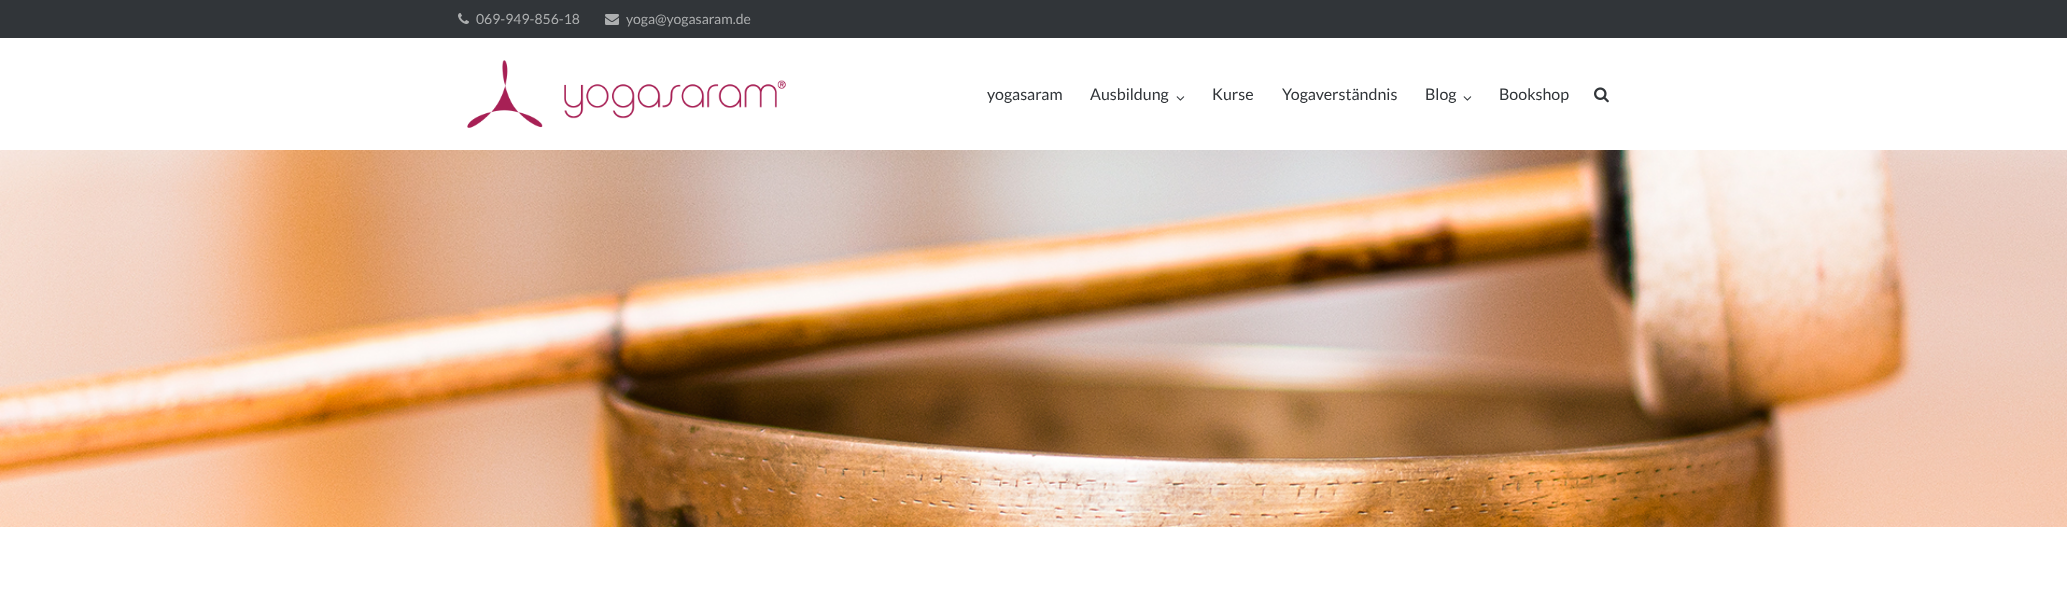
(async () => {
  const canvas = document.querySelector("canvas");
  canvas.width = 2067;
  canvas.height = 595;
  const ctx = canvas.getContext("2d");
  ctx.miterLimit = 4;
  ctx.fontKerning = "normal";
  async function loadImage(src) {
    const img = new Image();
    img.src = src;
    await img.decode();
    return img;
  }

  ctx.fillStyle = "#ffffff";
  ctx.fillRect(0, 0, 2067, 595);
  ctx.fillStyle = "#313539";
  ctx.fillRect(0, 0, 2067, 38);
  ctx.drawImage(await loadImage("img/1.png"), 458, 13, 11, 11);
  ctx.drawImage(await loadImage("img/2.png"), 605, 14, 14, 11);
  ctx.drawImage(await loadImage("img/3.png"), 467, 60, 319, 68);
  ctx.drawImage(await loadImage("img/4.png"), 1176, 96, 9, 5);
  ctx.drawImage(await loadImage("img/4.png"), 1463, 96, 9, 5);
  ctx.drawImage(await loadImage("img/5.png"), 1594, 87, 15, 16);
  ctx.drawImage(await loadImage("img/6.png"), 0, 150, 2067, 377);
  ctx.font = "14px Lato";
  ctx.fillStyle = "#acaeaf";
  ctx.fillText("069-949-856-18", 476, 24);
  ctx.fillText("yoga@yogasaram.de", 626, 24);
  ctx.font = "16px Lato";
  ctx.fillStyle = "#313539";
  for (const [text, x, y] of [
    ["yogasaram", 987, 100],
    ["Ausbildung", 1090, 100],
    ["Kurse", 1212, 100],
    ["Yogaverständnis", 1282, 100],
    ["Blog", 1425, 100],
    ["Bookshop", 1499, 100],
  ]) {
    ctx.fillText(text, x, y);
  }
})();
